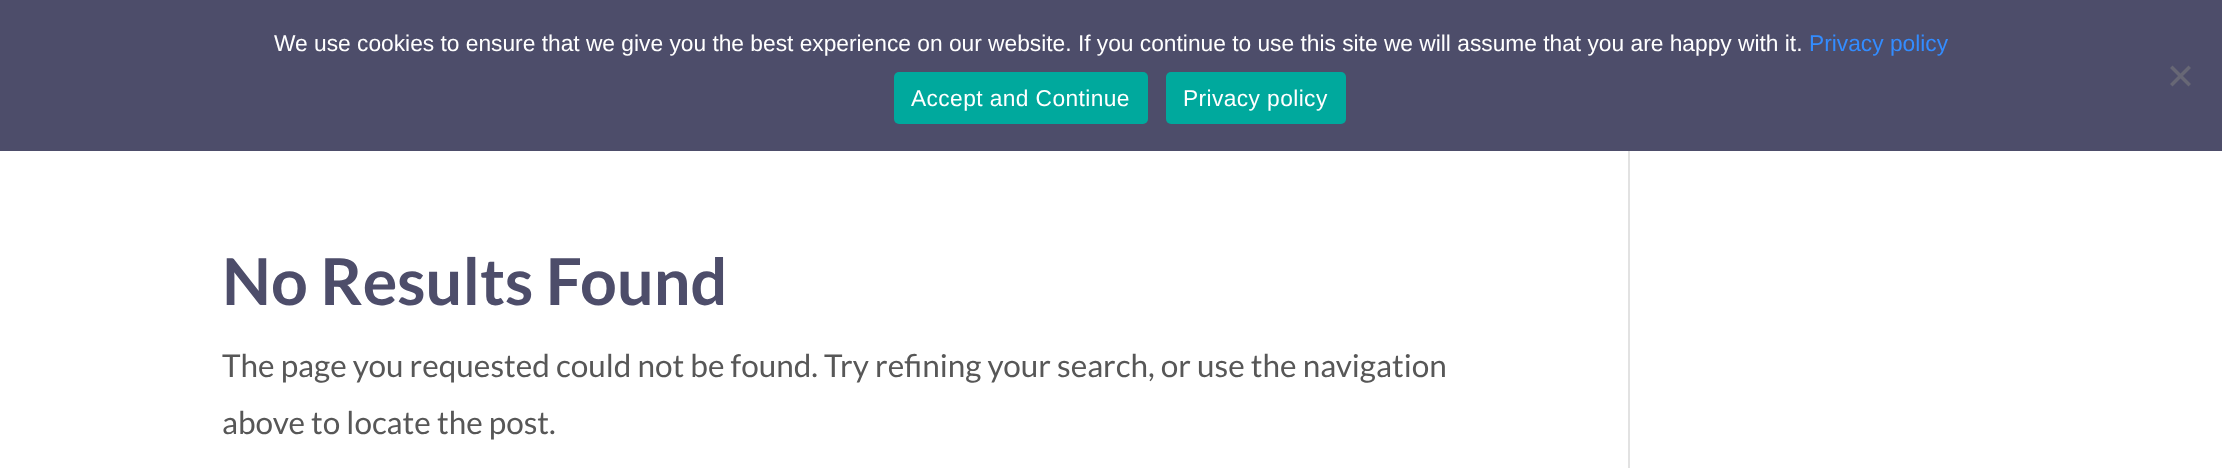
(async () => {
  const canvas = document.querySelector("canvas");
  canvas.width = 2222;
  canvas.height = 468;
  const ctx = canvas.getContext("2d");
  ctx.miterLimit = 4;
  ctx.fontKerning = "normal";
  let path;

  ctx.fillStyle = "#ffffff";
  ctx.fillRect(0, 0, 2222, 468);
  ctx.fillStyle = "#4d4d6a";
  ctx.fillRect(0, 0, 2222, 151);
  ctx.fillStyle = "#676775";
  path = new Path2D("M2188.5 65.5L2191 68L2172.5 86.5L2170 84Z");
  ctx.fill(path);
  path = new Path2D("M2170 68L2172.5 65.5L2191 84L2188.5 86.5Z");
  ctx.fill(path);
  ctx.fillStyle = "#00a99d";
  ctx.beginPath();
  ctx.roundRect(894, 72, 254, 52, 5);
  ctx.fill();
  ctx.beginPath();
  ctx.roundRect(1166, 72, 180, 52, 5);
  ctx.fill();
  ctx.fillStyle = "#e2e2e2";
  ctx.fillRect(1628, 151, 2, 317);
  ctx.font = "22.75px Liberation Sans";
  ctx.fillStyle = "#ffffff";
  ctx.fillText("We use cookies to ensure that we give you the best experience on our website. If you continue to use this site we will assume that you are happy with it.", 274, 51);
  ctx.fillStyle = "#338cff";
  ctx.fillText("Privacy policy", 1809, 51);
  ctx.letterSpacing = "0.4px";
  ctx.fillStyle = "#ffffff";
  ctx.fillText("Accept and Continue", 911, 106);
  ctx.fillText("Privacy policy", 1183, 106);
  ctx.letterSpacing = "0px";
  ctx.font = "bold 64.75px Lato";
  ctx.fillStyle = "#4d4d6a";
  ctx.fillText("No Results Found", 222, 305);
  ctx.font = "31.5px Lato";
  ctx.fillStyle = "#575757";
  ctx.fillText("The page you requested could not be found. Try refining your search, or use the navigation", 222, 377);
  ctx.fillText("above to locate the post.", 222, 434);
})();
